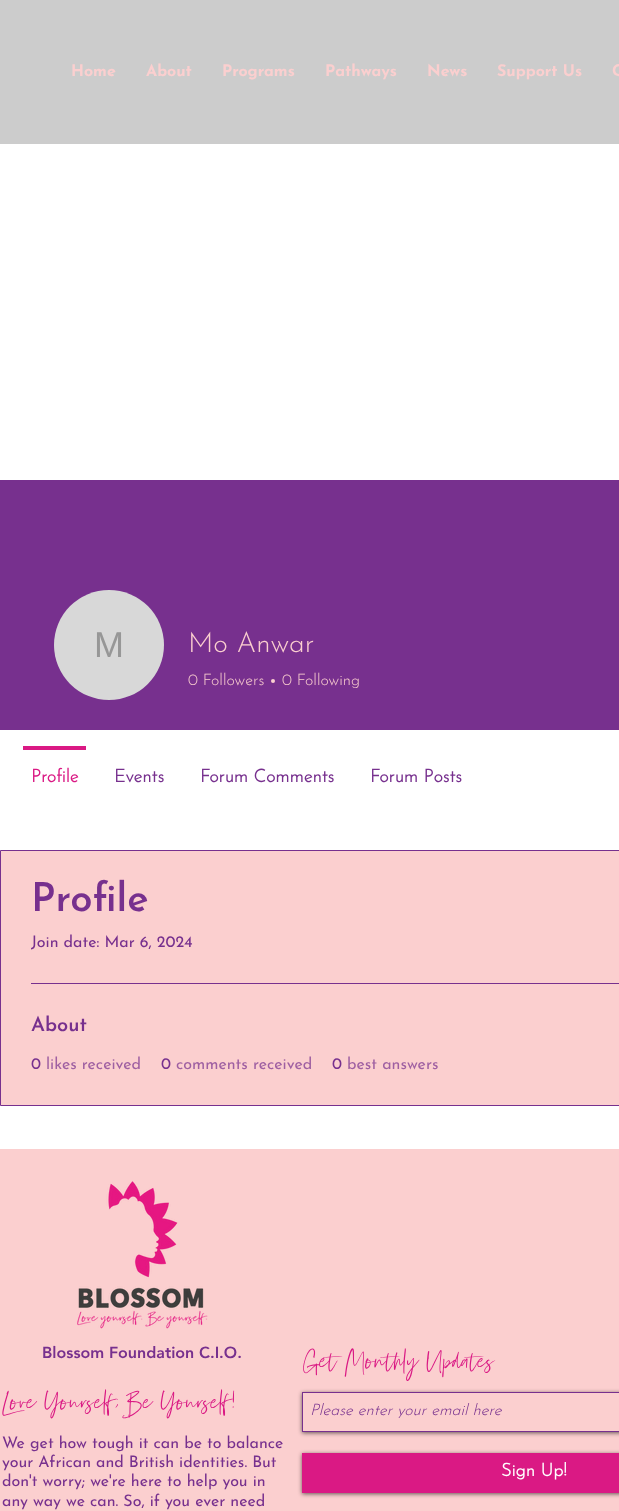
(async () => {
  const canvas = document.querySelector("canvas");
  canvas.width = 619;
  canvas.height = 1511;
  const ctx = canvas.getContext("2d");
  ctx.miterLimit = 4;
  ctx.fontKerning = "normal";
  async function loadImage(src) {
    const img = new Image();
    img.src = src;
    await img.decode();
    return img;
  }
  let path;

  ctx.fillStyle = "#ffffff";
  ctx.fillRect(0, 0, 619, 1511);
  ctx.fillStyle = "#cccccc";
  ctx.fillRect(0, 0, 619, 144);
  ctx.fillStyle = "#77308e";
  ctx.fillRect(0, 480, 619, 250);
  ctx.fillStyle = "#d8d8d8";
  ctx.beginPath();
  ctx.arc(109, 645, 55, 0, Math.PI * 2);
  ctx.fill();
  ctx.fillStyle = "#fbcfcf";
  ctx.beginPath();
  ctx.arc(273, 681, 2, 0, Math.PI * 2);
  ctx.fill();
  ctx.fillStyle = "#da1984";
  ctx.fillRect(23, 746, 63, 4);
  ctx.fillStyle = "#fbcfcf";
  ctx.beginPath();
  ctx.rect(0.5, 850.5, 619, 255);
  ctx.fill();
  ctx.strokeStyle = "#77308e";
  ctx.stroke();
  ctx.fillStyle = "#77308e";
  ctx.fillRect(31, 983, 588, 1);
  ctx.fillStyle = "#fbcfcf";
  ctx.fillRect(0, 1149, 619, 362);
  ctx.drawImage(await loadImage("img/1.png"), 77, 1181, 131, 148);
  ctx.save();
  path = new Path2D("M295 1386H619V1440H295ZM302 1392H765V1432H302Z");
  ctx.clip(path, "evenodd");
  ctx.fillStyle = "rgba(0, 0, 0, 0.6)";
  ctx.filter = "blur(2px)";
  ctx.beginPath();
  ctx.rect(302, 1393, 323, 40);
  ctx.fill();
  ctx.filter = "none";
  ctx.restore();
  ctx.strokeRect(302.5, 1392.5, 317, 39);
  ctx.fillStyle = "rgba(0, 0, 0, 0.6)";
  ctx.filter = "blur(2px)";
  ctx.beginPath();
  ctx.rect(302, 1454, 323, 40);
  ctx.fill();
  ctx.filter = "none";
  ctx.fillStyle = "#da1984";
  ctx.fillRect(302, 1453, 317, 40);
  ctx.font = "bold 16px 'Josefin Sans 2'";
  ctx.fillStyle = "#fbcfcf";
  for (const [text, x, y] of [
    ["Home", 71, 76],
    ["About", 146, 76],
    ["Programs", 222, 76],
    ["Pathways", 325, 76],
    ["News", 427, 76],
    ["Support Us", 497, 76],
    ["C", 612, 76],
  ]) {
    ctx.fillText(text, x, y);
  }
  ctx.font = "36px Liberation Sans";
  ctx.fillStyle = "#979797";
  ctx.fillText("M", 94, 657);
  ctx.font = "300 28px Josefin Sans";
  ctx.fillStyle = "#fbcfcf";
  ctx.fillText("Mo Anwar", 188, 652);
  ctx.font = "300 16px Josefin Sans";
  ctx.fillText("0 Followers", 188, 685);
  ctx.fillText("0 Following", 282, 685);
  ctx.font = "bold 18px Josefin Sans";
  ctx.fillStyle = "#da1984";
  ctx.fillText("Profile", 31, 782);
  ctx.fillStyle = "#77308e";
  for (const [text, x, y] of [
    ["Events", 114, 782],
    ["Forum Comments", 200, 782],
    ["Forum Posts", 370, 782],
  ]) {
    ctx.fillText(text, x, y);
  }
  ctx.font = "600 40px Josefin Sans";
  ctx.fillText("Profile", 31, 911);
  ctx.font = "16px Josefin Sans";
  ctx.fillText("Join date: Mar 6, 2024", 31, 947);
  ctx.font = "600 20px Josefin Sans";
  ctx.fillText("About", 31, 1031);
  ctx.font = "16px Josefin Sans";
  ctx.fillText("0", 31, 1069);
  ctx.fillStyle = "#9f60a2";
  ctx.fillText("likes received", 46, 1069);
  ctx.fillStyle = "#77308e";
  ctx.fillText("0", 161, 1069);
  ctx.fillStyle = "#9f60a2";
  ctx.fillText("comments received", 176, 1069);
  ctx.fillStyle = "#77308e";
  ctx.fillText("0", 332, 1069);
  ctx.fillStyle = "#9f60a2";
  ctx.fillText("best answers", 347, 1069);
  ctx.font = "900 16px 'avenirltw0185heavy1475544'";
  ctx.fillStyle = "#77308e";
  ctx.fillText("Blossom Foundation C.I.O.", 42, 1358);
  ctx.font = "30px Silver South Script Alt";
  ctx.fillStyle = "#da1984";
  ctx.fillText("Love Yourself, Be Yourself!", 2, 1411);
  ctx.font = "16px Josefin Sans";
  ctx.fillStyle = "#77308e";
  for (const [text, x, y] of [
    ["We get how tough it can be to balance", 2, 1448],
    ["your African and British identities. But", 2, 1467],
    ["don't worry; we're here to help you in", 2, 1486],
    ["any way we can. So, if you ever need", 2, 1506],
  ]) {
    ctx.fillText(text, x, y);
  }
  ctx.font = "30px Silver South Script Alt";
  ctx.fillStyle = "#da1984";
  ctx.fillText("Get Monthly Updates", 302, 1370);
  ctx.save();
  ctx.beginPath();
  ctx.rect(310, 1403, 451, 16);
  ctx.clip();
  ctx.font = "italic 300 16px Josefin Sans";
  ctx.fillStyle = "#77308e";
  ctx.fillText("Please enter your email here", 310, 1415);
  ctx.restore();
  ctx.font = "bold 18px Josefin Sans";
  ctx.fillStyle = "#ffffff";
  ctx.fillText("Sign Up!", 501, 1476);
})();
